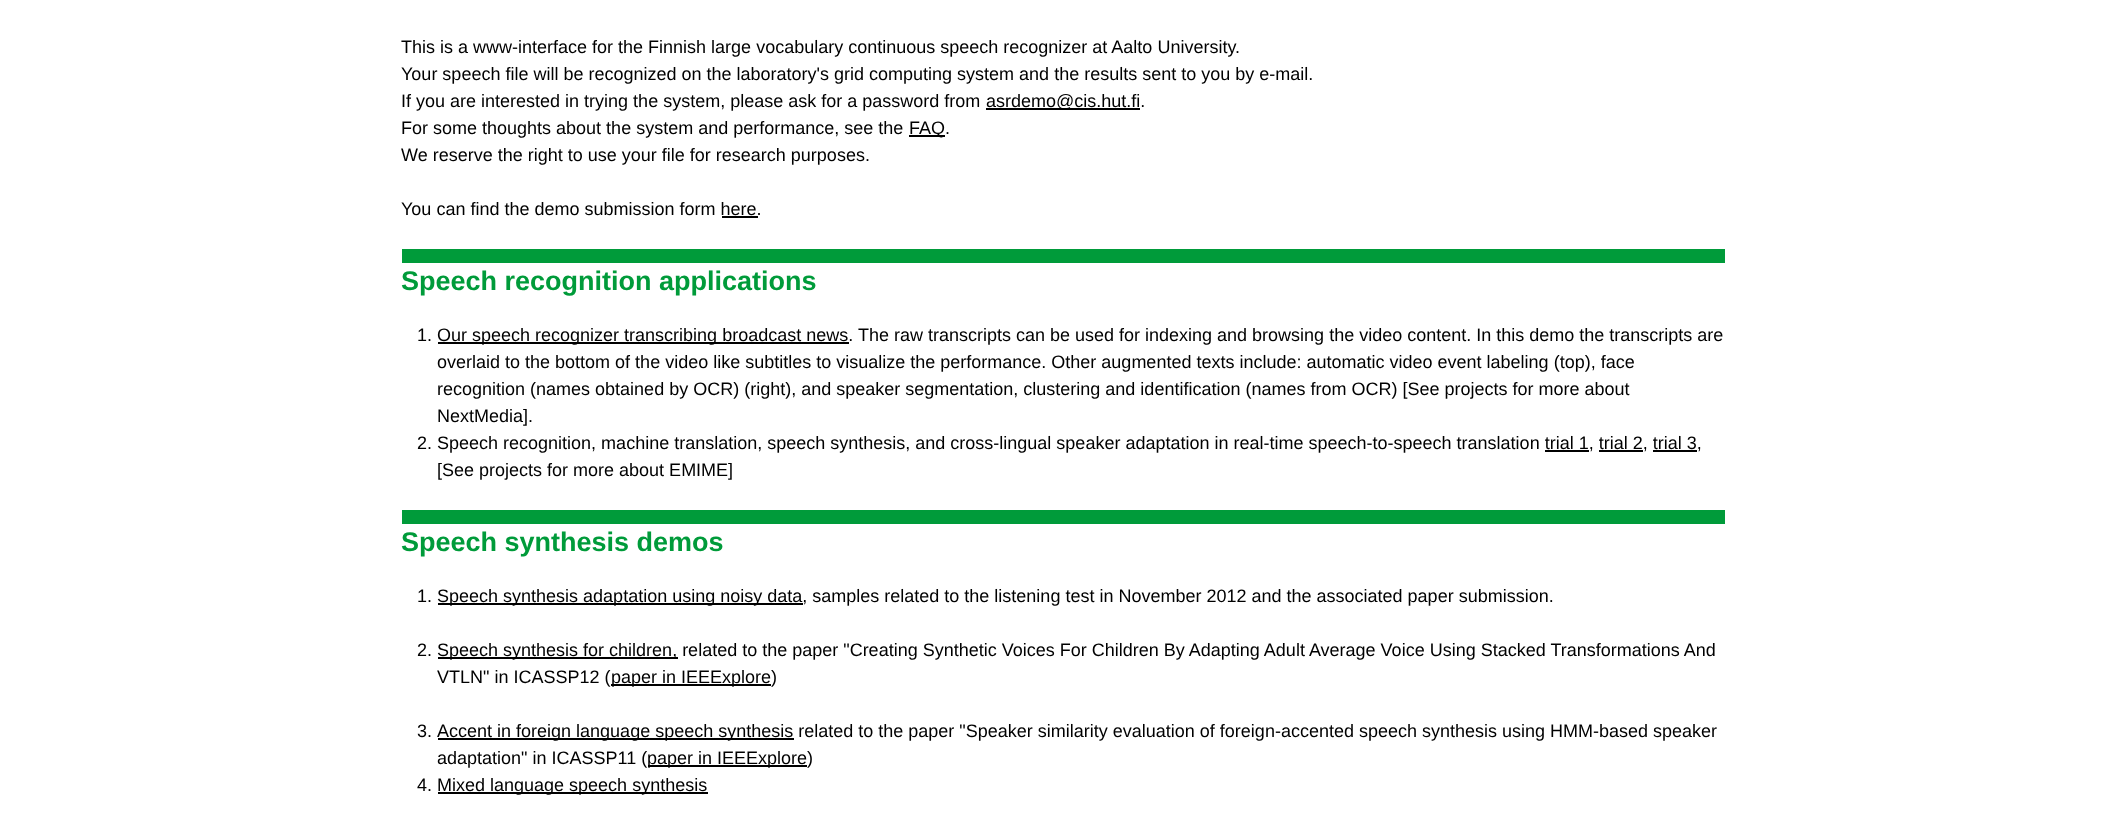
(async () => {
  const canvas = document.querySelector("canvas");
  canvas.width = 2125;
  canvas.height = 837;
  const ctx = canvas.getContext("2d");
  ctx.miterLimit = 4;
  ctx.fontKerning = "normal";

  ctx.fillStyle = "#ffffff";
  ctx.fillRect(0, 0, 2125, 837);
  for (const [x, y, w, h, color] of [
    [986, 108, 154, 2, "#000000"],
    [909, 135, 36, 2, "#000000"],
    [722, 216, 36, 2, "#000000"],
    [402, 249, 1323, 14, "#009b3a"],
    [438, 342, 411, 2, "#000000"],
    [1545, 450, 44, 2, "#000000"],
    [1599, 450, 44, 2, "#000000"],
    [1653, 450, 44, 2, "#000000"],
    [402, 510, 1323, 14, "#009b3a"],
    [438, 603, 365, 2, "#000000"],
    [438, 657, 240, 2, "#000000"],
    [611, 684, 160, 2, "#000000"],
    [438, 738, 356, 2, "#000000"],
    [648, 765, 159, 2, "#000000"],
    [438, 792, 270, 2, "#000000"],
  ]) {
    ctx.fillStyle = color;
    ctx.fillRect(x, y, w, h);
  }
  ctx.font = "18px Liberation Sans";
  for (const [text, x, y] of [
    ["This is a www-interface for the Finnish large vocabulary continuous speech recognizer at Aalto University.", 401, 53],
    ["Your speech file will be recognized on the laboratory's grid computing system and the results sent to you by e-mail.", 401, 80],
    ["If you are interested in trying the system, please ask for a password from", 401, 107],
    ["asrdemo@cis.hut.fi.", 986, 107],
    ["For some thoughts about the system and performance, see the", 401, 134],
    ["FAQ.", 909, 134],
    ["We reserve the right to use your file for research purposes.", 401, 161],
    ["You can find the demo submission form here.", 401, 215],
  ]) {
    ctx.fillText(text, x, y);
  }
  ctx.font = "bold 27px Liberation Sans";
  ctx.fillStyle = "#009b3a";
  ctx.fillText("Speech recognition applications", 401, 290);
  ctx.font = "18px Liberation Sans";
  ctx.fillStyle = "#000000";
  for (const [text, x, y] of [
    ["1.", 417, 341],
    ["Our speech recognizer transcribing broadcast news. The raw transcripts can be used for indexing and browsing the video content. In this demo the transcripts are", 437, 341],
    ["overlaid to the bottom of the video like subtitles to visualize the performance. Other augmented texts include: automatic video event labeling (top), face", 437, 368],
    ["recognition (names obtained by OCR) (right), and speaker segmentation, clustering and identification (names from OCR) [See projects for more about", 437, 395],
    ["NextMedia].", 437, 422],
    ["2. Speech recognition, machine translation, speech synthesis, and cross-lingual speaker adaptation in real-time speech-to-speech translation trial 1, trial 2, trial 3,", 417, 449],
    ["[See projects for more about EMIME]", 437, 476],
  ]) {
    ctx.fillText(text, x, y);
  }
  ctx.font = "bold 27px Liberation Sans";
  ctx.fillStyle = "#009b3a";
  ctx.fillText("Speech synthesis demos", 401, 551);
  ctx.font = "18px Liberation Sans";
  ctx.fillStyle = "#000000";
  for (const [text, x, y] of [
    ["1.", 417, 602],
    ["Speech synthesis adaptation using noisy data, samples related to the listening test in November 2012 and the associated paper submission.", 437, 602],
    ["2.", 417, 656],
    ["Speech synthesis for children, related to the paper \"Creating Synthetic Voices For Children By Adapting Adult Average Voice Using Stacked Transformations And", 437, 656],
    ["VTLN\" in ICASSP12 (", 437, 683],
    ["paper in IEEExplore)", 611, 683],
    ["3.", 417, 737],
    ["Accent in foreign language speech synthesis related to the paper \"Speaker similarity evaluation of foreign-accented speech synthesis using HMM-based speaker", 437, 737],
    ["adaptation\" in ICASSP11 (", 437, 764],
    ["paper in IEEExplore)", 647, 764],
    ["4.", 417, 791],
    ["Mixed language speech synthesis", 437, 791],
  ]) {
    ctx.fillText(text, x, y);
  }
})();
